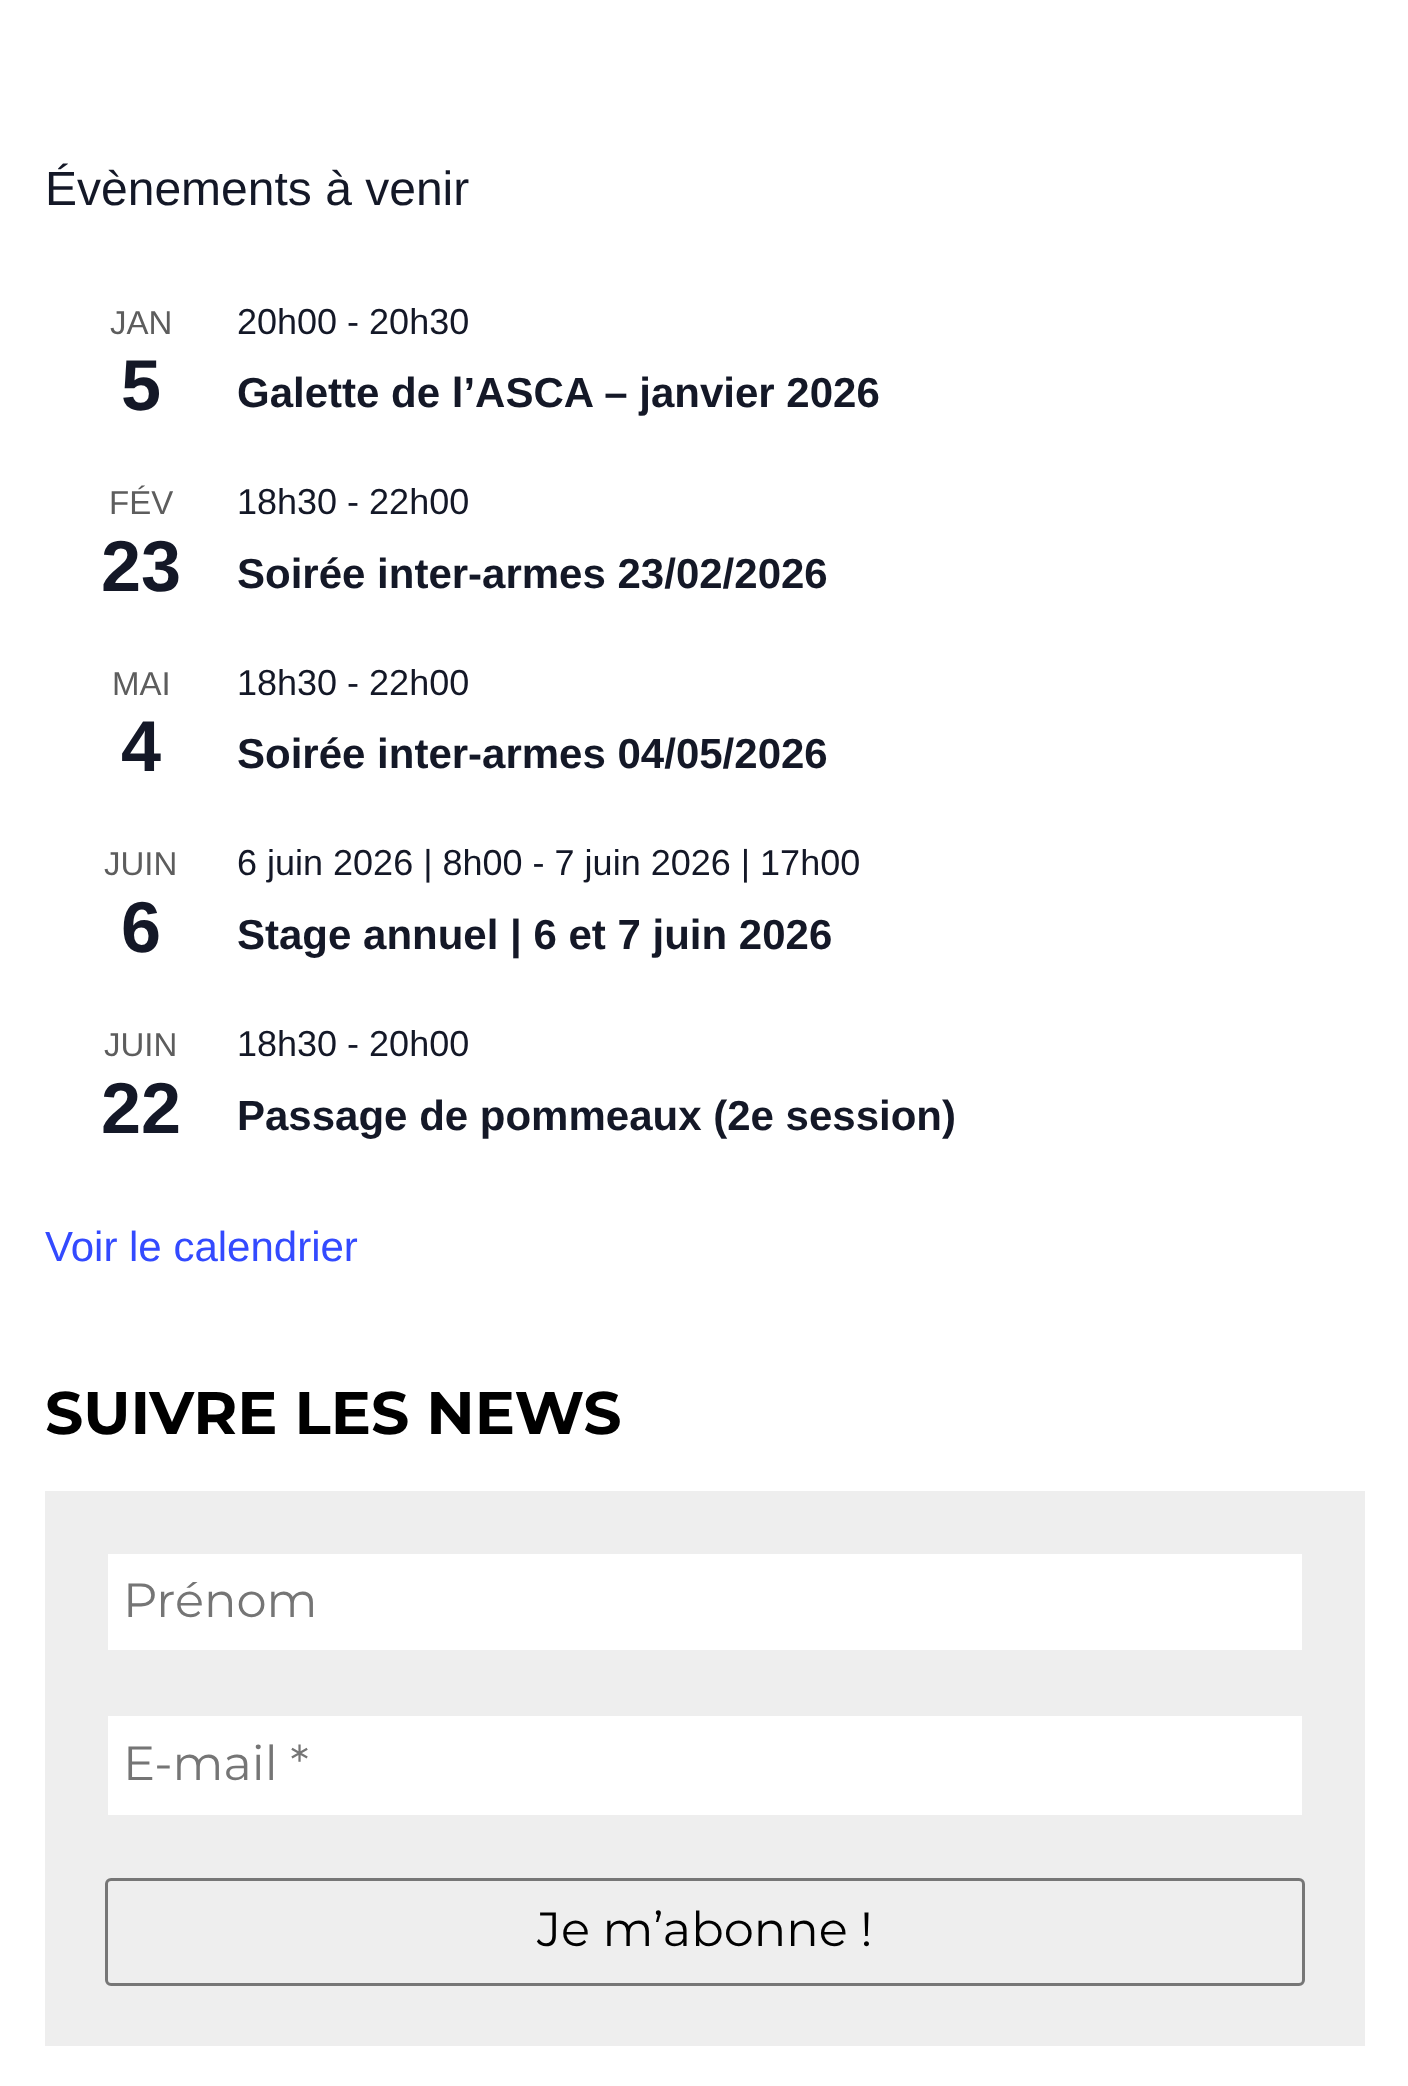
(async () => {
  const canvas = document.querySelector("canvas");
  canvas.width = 1408;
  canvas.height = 2086;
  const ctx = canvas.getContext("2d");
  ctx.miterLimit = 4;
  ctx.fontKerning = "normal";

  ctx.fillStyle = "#ffffff";
  ctx.fillRect(0, 0, 1408, 2086);
  for (const [x, y, w, h, color] of [
    [45, 1491, 1320, 555, "#eeeeee"],
    [108, 1554, 1194, 96, "#ffffff"],
    [108, 1716, 1194, 99, "#ffffff"],
  ]) {
    ctx.fillStyle = color;
    ctx.fillRect(x, y, w, h);
  }
  ctx.beginPath();
  ctx.roundRect(106.5, 1879.5, 1197, 105, 4.5);
  ctx.strokeStyle = "#767676";
  ctx.lineWidth = 3;
  ctx.stroke();
  ctx.font = "48px Liberation Sans";
  ctx.fillStyle = "#141827";
  ctx.fillText("Évènements à venir", 45, 205);
  ctx.font = "33px Liberation Sans";
  ctx.fillStyle = "#5d5d5d";
  ctx.fillText("JAN", 110, 334);
  ctx.font = "bold 72px Liberation Sans";
  ctx.fillStyle = "#141827";
  ctx.fillText("5", 121, 410);
  ctx.font = "36px Liberation Sans";
  ctx.fillText("20h00 - 20h30", 237, 334);
  ctx.font = "bold 42px Liberation Sans";
  ctx.fillText("Galette de l’ASCA – janvier 2026", 237, 407);
  ctx.font = "33px Liberation Sans";
  ctx.fillStyle = "#5d5d5d";
  ctx.fillText("FÉV", 109, 514);
  ctx.font = "bold 72px Liberation Sans";
  ctx.fillStyle = "#141827";
  ctx.fillText("23", 101, 591);
  ctx.font = "36px Liberation Sans";
  ctx.fillText("18h30 - 22h00", 237, 514);
  ctx.font = "bold 42px Liberation Sans";
  ctx.fillText("Soirée inter-armes 23/02/2026", 237, 588);
  ctx.font = "33px Liberation Sans";
  ctx.fillStyle = "#5d5d5d";
  ctx.fillText("MAI", 112, 695);
  ctx.font = "bold 72px Liberation Sans";
  ctx.fillStyle = "#141827";
  ctx.fillText("4", 121, 771);
  ctx.font = "36px Liberation Sans";
  ctx.fillText("18h30 - 22h00", 237, 695);
  ctx.font = "bold 42px Liberation Sans";
  ctx.fillText("Soirée inter-armes 04/05/2026", 237, 768);
  ctx.font = "33px Liberation Sans";
  ctx.fillStyle = "#5d5d5d";
  ctx.fillText("JUIN", 104, 875);
  ctx.font = "bold 72px Liberation Sans";
  ctx.fillStyle = "#141827";
  ctx.fillText("6", 121, 952);
  ctx.font = "36px Liberation Sans";
  ctx.fillText("6 juin 2026 | 8h00 - 7 juin 2026 | 17h00", 237, 875);
  ctx.font = "bold 42px Liberation Sans";
  ctx.fillText("Stage annuel | 6 et 7 juin 2026", 237, 949);
  ctx.font = "33px Liberation Sans";
  ctx.fillStyle = "#5d5d5d";
  ctx.fillText("JUIN", 104, 1056);
  ctx.font = "bold 72px Liberation Sans";
  ctx.fillStyle = "#141827";
  ctx.fillText("22", 101, 1133);
  ctx.font = "36px Liberation Sans";
  ctx.fillText("18h30 - 20h00", 237, 1056);
  ctx.font = "bold 42px Liberation Sans";
  ctx.fillText("Passage de pommeaux (2e session)", 237, 1130);
  ctx.font = "42px Liberation Sans";
  ctx.fillStyle = "#334aff";
  ctx.fillText("Voir le calendrier", 45, 1261);
  ctx.font = "bold 60px Montserrat";
  ctx.fillStyle = "#000000";
  ctx.fillText("SUIVRE LES NEWS", 45, 1434);
  ctx.font = "48px Montserrat";
  ctx.fillStyle = "#757575";
  ctx.fillText("Prénom", 123, 1617);
  ctx.fillText("E-mail *", 123, 1780);
  ctx.fillStyle = "#000000";
  ctx.fillText("Je m’abonne !", 537, 1946);
})();
